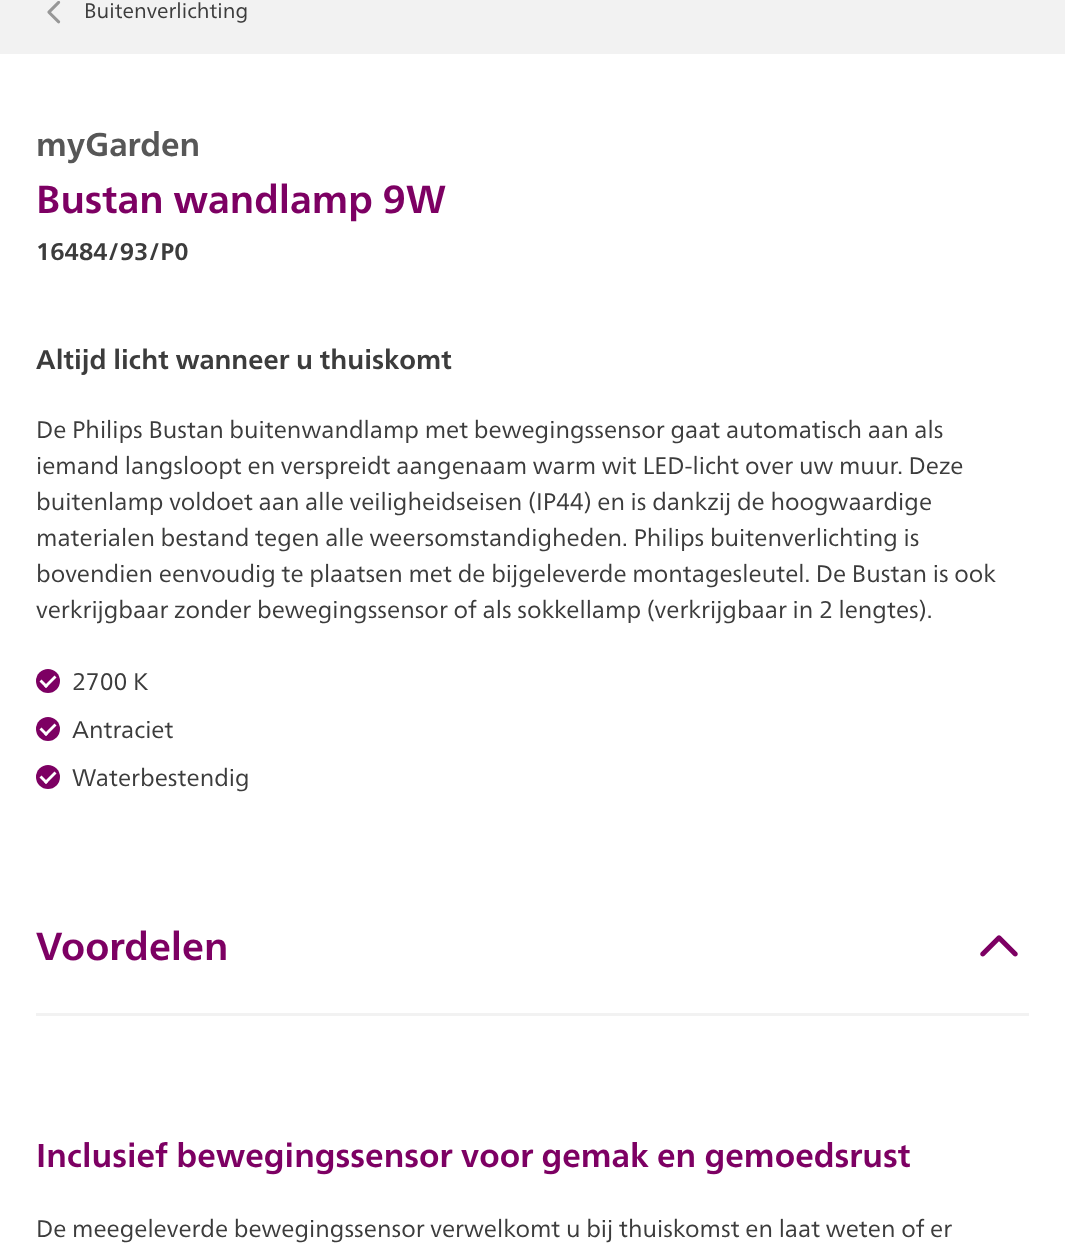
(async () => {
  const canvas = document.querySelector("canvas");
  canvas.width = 1065;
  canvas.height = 1246;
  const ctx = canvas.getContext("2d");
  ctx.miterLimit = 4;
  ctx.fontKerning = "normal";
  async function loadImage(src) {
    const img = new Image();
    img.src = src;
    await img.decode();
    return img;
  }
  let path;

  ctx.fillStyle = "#ffffff";
  ctx.fillRect(0, 0, 1065, 1246);
  ctx.fillStyle = "#f2f2f2";
  ctx.fillRect(0, 0, 1065, 54);
  ctx.drawImage(await loadImage("img/1.png"), 47, 1, 14, 23);
  ctx.fillStyle = "#7d0063";
  ctx.beginPath();
  ctx.arc(48, 681, 12, 0, Math.PI * 2);
  ctx.fill();
  ctx.fillStyle = "#ffffff";
  path = new Path2D("M54.5 675.5L56.5 677.5L46 688L44 686Z");
  ctx.fill(path);
  path = new Path2D("M41.5 679.5L48 686L46 688L39.5 681.5Z");
  ctx.fill(path);
  ctx.fillStyle = "#7d0063";
  ctx.beginPath();
  ctx.arc(48, 729, 12, 0, Math.PI * 2);
  ctx.fill();
  ctx.fillStyle = "#ffffff";
  path = new Path2D("M54.5 723.5L56.5 725.5L46 736L44 734Z");
  ctx.fill(path);
  path = new Path2D("M41.5 727.5L48 734L46 736L39.5 729.5Z");
  ctx.fill(path);
  ctx.fillStyle = "#7d0063";
  ctx.beginPath();
  ctx.arc(48, 777, 12, 0, Math.PI * 2);
  ctx.fill();
  ctx.fillStyle = "#ffffff";
  path = new Path2D("M54.5 771.5L56.5 773.5L46 784L44 782Z");
  ctx.fill(path);
  path = new Path2D("M41.5 775.5L48 782L46 784L39.5 777.5Z");
  ctx.fill(path);
  ctx.fillStyle = "#f2f2f2";
  ctx.fillRect(36, 1013, 993, 3);
  ctx.drawImage(await loadImage("img/2.png"), 980, 935, 38, 22);
  ctx.font = "21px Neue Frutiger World";
  ctx.fillStyle = "#3c3c3c";
  ctx.fillText("Buitenverlichting", 84, 18);
  ctx.font = "bold 33px Neue Frutiger World";
  ctx.fillStyle = "#575757";
  ctx.fillText("myGarden", 36, 156);
  ctx.font = "bold 39px Neue Frutiger World";
  ctx.fillStyle = "#7d0063";
  ctx.fillText("Bustan wandlamp 9W", 36, 213);
  ctx.font = "bold 24px Neue Frutiger World";
  ctx.fillStyle = "#3c3c3c";
  ctx.fillText("16484/93/P0", 36, 260);
  ctx.font = "bold 27px Neue Frutiger World";
  ctx.fillText("Altijd licht wanneer u thuiskomt", 36, 369);
  ctx.font = "24px Neue Frutiger World";
  for (const [text, x, y] of [
    ["De Philips Bustan buitenwandlamp met bewegingssensor gaat automatisch aan als", 36, 438],
    ["iemand langsloopt en verspreidt aangenaam warm wit LED-licht over uw muur. Deze", 36, 474],
    ["buitenlamp voldoet aan alle veiligheidseisen (IP44) en is dankzij de hoogwaardige", 36, 510],
    ["materialen bestand tegen alle weersomstandigheden. Philips buitenverlichting is", 36, 546],
    ["bovendien eenvoudig te plaatsen met de bijgeleverde montagesleutel. De Bustan is ook", 36, 582],
    ["verkrijgbaar zonder bewegingssensor of als sokkellamp (verkrijgbaar in 2 lengtes).", 36, 618],
    ["2700 K", 72, 690],
    ["Antraciet", 72, 738],
    ["Waterbestendig", 72, 786],
  ]) {
    ctx.fillText(text, x, y);
  }
  ctx.font = "bold 39px Neue Frutiger World";
  ctx.fillStyle = "#7d0063";
  ctx.fillText("Voordelen", 36, 960);
  ctx.font = "bold 33px Neue Frutiger World";
  ctx.fillText("Inclusief bewegingssensor voor gemak en gemoedsrust", 36, 1167);
  ctx.font = "24px Neue Frutiger World";
  ctx.fillStyle = "#3c3c3c";
  ctx.fillText("De meegeleverde bewegingssensor verwelkomt u bij thuiskomst en laat weten of er", 36, 1237);
})();
